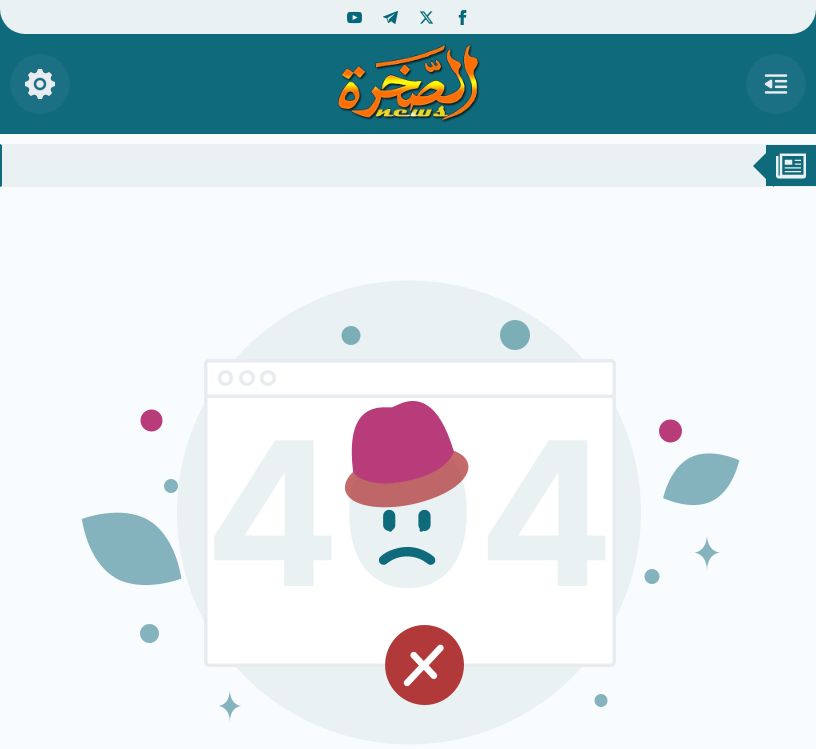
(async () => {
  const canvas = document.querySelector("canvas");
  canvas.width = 816;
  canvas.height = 749;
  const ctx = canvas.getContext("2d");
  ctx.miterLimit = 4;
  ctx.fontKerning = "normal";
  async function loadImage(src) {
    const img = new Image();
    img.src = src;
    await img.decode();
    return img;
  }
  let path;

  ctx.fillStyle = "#f9fcff";
  ctx.fillRect(0, 0, 816, 749);
  ctx.fillStyle = "#0f6a7c";
  ctx.fillRect(0, 9, 816, 125);
  ctx.fillStyle = "#eaf1f3";
  ctx.beginPath();
  ctx.roundRect(0, 0, 816, 34, [0, 0, 25, 25]);
  ctx.fill();
  ctx.drawImage(await loadImage("img/1.png"), 347, 11, 15, 13);
  ctx.drawImage(await loadImage("img/2.png"), 383, 11, 15, 13);
  ctx.drawImage(await loadImage("img/3.png"), 419, 11, 15, 13);
  ctx.drawImage(await loadImage("img/4.png"), 458, 10, 9, 15);
  ctx.fillStyle = "#1b7183";
  ctx.beginPath();
  ctx.arc(40, 84, 30, 0, Math.PI * 2);
  ctx.fill();
  ctx.drawImage(await loadImage("img/5.png"), 25, 69, 30, 30);
  ctx.drawImage(await loadImage("img/6.png"), 337, 44, 143, 79);
  ctx.beginPath();
  ctx.arc(776, 84, 30, 0, Math.PI * 2);
  ctx.fill();
  ctx.drawImage(await loadImage("img/7.png"), 764, 74, 24, 20);
  ctx.fillStyle = "#eaf1f3";
  ctx.fillRect(0, 144, 766, 43);
  ctx.fillStyle = "#ecf0f4";
  path = new Path2D("M0 144H816V145H2Z");
  ctx.fill(path);
  path = new Path2D("M816 187H0L2 186H816Z");
  ctx.fill(path);
  ctx.fillStyle = "#0f6a7c";
  path = new Path2D("M0 187V144L2 145V186Z");
  ctx.fill(path);
  ctx.fillRect(766, 145, 50, 41);
  path = new Path2D("M774 145V187L753 166Z");
  ctx.fill(path);
  ctx.drawImage(await loadImage("img/8.png"), 776, 153, 30, 26);
  ctx.drawImage(await loadImage("img/9.png"), 81, 280, 659, 465);
})();
